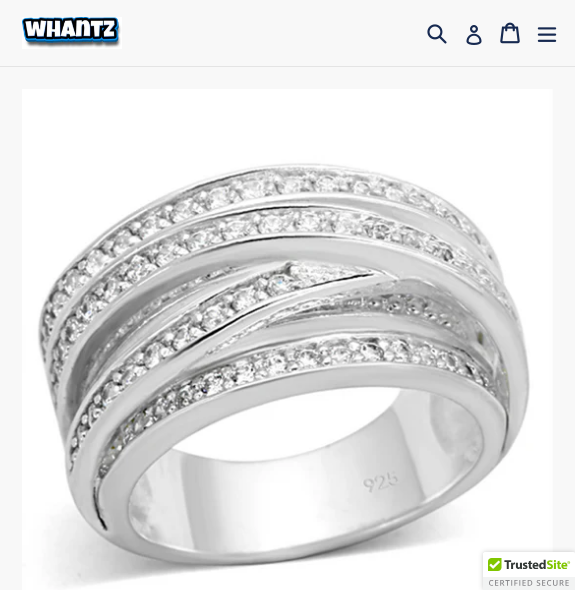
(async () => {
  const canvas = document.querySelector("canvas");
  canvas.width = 575;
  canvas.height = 590;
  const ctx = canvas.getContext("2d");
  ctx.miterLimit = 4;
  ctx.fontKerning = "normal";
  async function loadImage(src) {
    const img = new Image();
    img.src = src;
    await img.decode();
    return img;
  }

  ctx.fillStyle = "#f8f8f8";
  ctx.fillRect(0, 0, 575, 590);
  ctx.fillStyle = "#e4e4e4";
  ctx.fillRect(0, 66, 575, 1);
  ctx.drawImage(await loadImage("img/1.png"), 22, 17, 100, 32);
  ctx.drawImage(await loadImage("img/2.png"), 427, 24, 20, 20);
  ctx.drawImage(await loadImage("img/3.png"), 466, 25, 16, 20);
  ctx.drawImage(await loadImage("img/4.png"), 500, 22, 20, 22);
  ctx.drawImage(await loadImage("img/5.png"), 537, 27, 20, 15);
  ctx.drawImage(await loadImage("img/6.png"), 22, 89, 531, 501);
  ctx.fillStyle = "rgba(0, 0, 0, 0.2)";
  ctx.filter = "blur(2.5px)";
  ctx.beginPath();
  ctx.roundRect(483, 552, 92, 38, 2);
  ctx.fill();
  ctx.filter = "none";
  ctx.fillStyle = "#ffffff";
  ctx.beginPath();
  ctx.roundRect(483, 552, 92, 38, [2, 0, 0, 0]);
  ctx.fill();
  ctx.drawImage(await loadImage("img/7.png"), 483, 552, 92, 38);
})();
